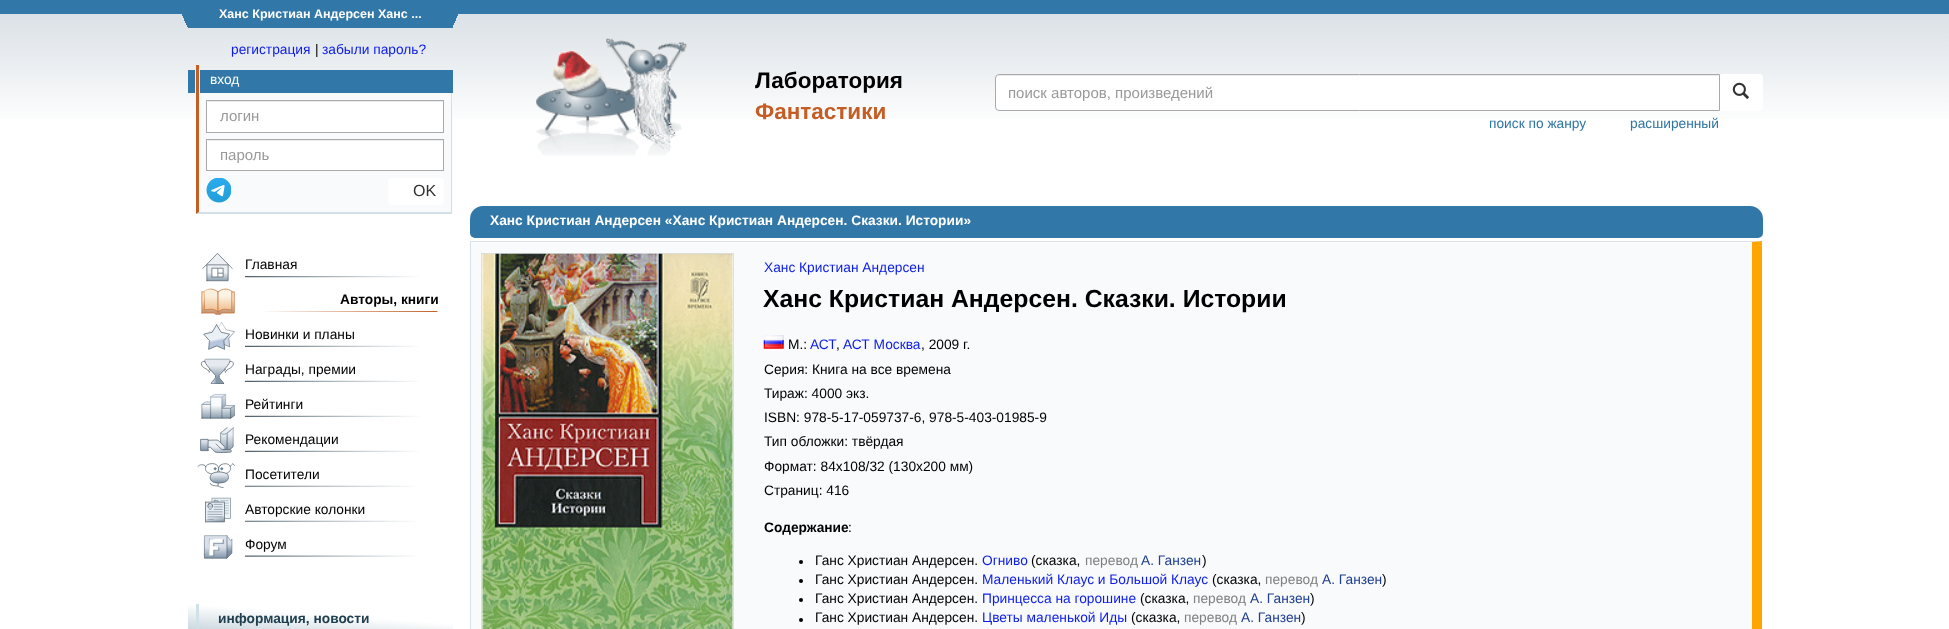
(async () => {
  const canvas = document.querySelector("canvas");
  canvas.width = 1949;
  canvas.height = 629;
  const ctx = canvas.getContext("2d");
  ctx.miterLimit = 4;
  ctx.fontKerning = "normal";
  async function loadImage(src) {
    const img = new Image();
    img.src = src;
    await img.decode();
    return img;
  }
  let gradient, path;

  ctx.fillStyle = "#ffffff";
  ctx.fillRect(0, 0, 1949, 629);
  gradient = ctx.createLinearGradient(975, 0, 975, 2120);
  gradient.addColorStop(0, "#d6dde3");
  gradient.addColorStop(0.06, "#ffffff");
  ctx.fillStyle = gradient;
  ctx.fillRect(0, 14, 1949, 105);
  ctx.fillStyle = "#3177a8";
  ctx.fillRect(0, 0, 1949, 14);
  gradient = ctx.createLinearGradient(171, 18, 192, 9);
  gradient.addColorStop(0, "rgba(0, 0, 0, 0)");
  gradient.addColorStop(0.5, "rgba(49, 119, 168, 0)");
  gradient.addColorStop(0.5, "#3177a8");
  gradient.addColorStop(1, "#3177a8");
  ctx.fillStyle = gradient;
  ctx.fillRect(182, 14, 6, 13);
  ctx.fillStyle = "#3178a8";
  ctx.fillRect(188, 14, 265, 14);
  gradient = ctx.createLinearGradient(469, 18, 448, 9);
  gradient.addColorStop(0, "rgba(0, 0, 0, 0)");
  gradient.addColorStop(0.5, "rgba(49, 119, 168, 0)");
  gradient.addColorStop(0.5, "#3177a8");
  gradient.addColorStop(1, "#3177a8");
  ctx.fillStyle = gradient;
  ctx.fillRect(453, 14, 5, 11);
  for (const [x, y, w, h, color] of [
    [188, 70, 7, 23, "#3178a8"],
    [196, 65, 3, 28, "#c45e24"],
    [200, 70, 253, 23, "#3178a8"],
    [196, 93, 257, 121, "#f9fafb"],
    [451, 93, 1, 121, "#d2e0e8"],
  ]) {
    ctx.fillStyle = color;
    ctx.fillRect(x, y, w, h);
  }
  path = new Path2D("M452 214H196L199 212H451Z");
  ctx.fill(path);
  ctx.fillStyle = "#c45e24";
  path = new Path2D("M196 214V92H199V212Z");
  ctx.fill(path);
  ctx.fillStyle = "#ffffff";
  ctx.fillRect(207, 101, 236, 31);
  ctx.fillStyle = "#ececec";
  ctx.fillRect(208, 101, 235, 1);
  ctx.strokeStyle = "#aaaaaa";
  ctx.strokeRect(206.5, 100.5, 237, 32);
  ctx.fillStyle = "#ffffff";
  ctx.fillRect(207, 140, 236, 30);
  ctx.fillStyle = "#ececec";
  ctx.fillRect(208, 140, 235, 1);
  ctx.strokeRect(206.5, 139.5, 237, 31);
  ctx.drawImage(await loadImage("img/1.png"), 206, 178, 25, 25);
  ctx.fillStyle = "#ffffff";
  ctx.beginPath();
  ctx.roundRect(388, 178, 56, 27, 4);
  ctx.fill();
  ctx.drawImage(await loadImage("img/2.png"), 536, 38, 152, 118);
  ctx.beginPath();
  ctx.roundRect(1719, 74, 44, 37, 4);
  ctx.fill();
  ctx.beginPath();
  ctx.roundRect(995, 74, 725, 37, [4, 0, 0, 4]);
  ctx.fill();
  ctx.fillStyle = "#ececec";
  path = new Path2D("M999 76H1719V75H998C997 75 996 76 996 78V79C996 77 997 76 999 76Z");
  ctx.fill(path);
  ctx.beginPath();
  ctx.roundRect(995.5, 74.5, 724, 36, [3.5, 0, 0, 3.5]);
  ctx.stroke();
  ctx.drawImage(await loadImage("img/3.png"), 1732, 82, 17, 17);
  ctx.drawImage(await loadImage("img/4.png"), 202, 253, 217, 29);
  ctx.drawImage(await loadImage("img/5.png"), 201, 288, 237, 27);
  ctx.drawImage(await loadImage("img/6.png"), 203, 321, 216, 29);
  ctx.drawImage(await loadImage("img/7.png"), 200, 358, 219, 26);
  ctx.drawImage(await loadImage("img/8.png"), 201, 393, 218, 26);
  ctx.drawImage(await loadImage("img/9.png"), 200, 427, 219, 26);
  ctx.drawImage(await loadImage("img/10.png"), 197, 463, 220, 26);
  ctx.drawImage(await loadImage("img/11.png"), 205, 497, 212, 26);
  ctx.drawImage(await loadImage("img/12.png"), 203, 535, 214, 24);
  gradient = ctx.createLinearGradient(318, 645, 322, 592);
  gradient.addColorStop(0, "#c0cfd8");
  gradient.addColorStop(0.59, "#ffffff");
  ctx.fillStyle = gradient;
  ctx.fillRect(188, 605, 265, 24);
  ctx.fillStyle = "#d2e0e8";
  path = new Path2D("M196 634V604H199V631Z");
  ctx.fill(path);
  ctx.fillStyle = "#3178a8";
  ctx.beginPath();
  ctx.roundRect(470, 206, 1293, 32, [13, 13, 5, 5]);
  ctx.fill();
  ctx.fillStyle = "#f9fafb";
  ctx.fillRect(471, 243, 1281, 386);
  ctx.fillStyle = "#d8e1e6";
  path = new Path2D("M470 241H1762L1752 242H471Z");
  ctx.fill(path);
  ctx.fillStyle = "#ffa500";
  path = new Path2D("M1762 241V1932L1752 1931V242Z");
  ctx.fill(path);
  ctx.fillStyle = "#d8e1e6";
  ctx.fillRect(470, 241, 1, 388);
  ctx.strokeStyle = "#d8e1e6";
  ctx.strokeRect(481.5, 253.5, 252, 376);
  ctx.drawImage(await loadImage("img/13.png"), 482, 253, 251, 376);
  ctx.drawImage(await loadImage("img/14.png"), 763, 335, 21, 14);
  ctx.fillStyle = "#000000";
  ctx.beginPath();
  ctx.arc(801, 562, 2, 0, Math.PI * 2);
  ctx.fill();
  ctx.beginPath();
  ctx.arc(801, 581, 2, 0, Math.PI * 2);
  ctx.fill();
  ctx.beginPath();
  ctx.arc(801, 600, 2, 0, Math.PI * 2);
  ctx.fill();
  ctx.beginPath();
  ctx.arc(801, 620, 2, 0, Math.PI * 2);
  ctx.fill();
  ctx.font = "bold 12.5px Liberation Sans";
  ctx.fillStyle = "#ffffff";
  ctx.fillText("Ханс Кристиан Андерсен Ханс ...", 219, 18);
  ctx.font = "13.75px Liberation Sans";
  ctx.fillStyle = "#0c1de9";
  ctx.fillText("регистрация", 231, 54);
  ctx.fillStyle = "#000000";
  ctx.fillText("|", 315, 54);
  ctx.fillStyle = "#0c1de9";
  ctx.fillText("забыли пароль?", 322, 54);
  ctx.fillStyle = "#ffffff";
  ctx.fillText("вход", 210, 84);
  ctx.font = "15px Liberation Sans";
  ctx.fillStyle = "#999999";
  ctx.fillText("логин", 220, 121);
  ctx.fillText("пароль", 220, 160);
  ctx.font = "16px Liberation Sans";
  ctx.fillStyle = "#333333";
  ctx.fillText("OK", 413, 196);
  ctx.font = "bold 22.5px Liberation Sans";
  ctx.fillStyle = "#000000";
  ctx.fillText("Лаборатория", 755, 88);
  ctx.fillStyle = "#c45e24";
  ctx.fillText("Фантастики", 755, 119);
  ctx.save();
  ctx.beginPath();
  ctx.rect(1009, 84, 697, 17);
  ctx.clip();
  ctx.font = "15px Liberation Sans";
  ctx.fillStyle = "#999999";
  ctx.fillText("поиск авторов, произведений", 1008, 98);
  ctx.restore();
  ctx.font = "13.75px Liberation Sans";
  ctx.fillStyle = "#3076a5";
  ctx.fillText("поиск по жанру", 1489, 128);
  ctx.fillText("расширенный", 1630, 128);
  ctx.fillStyle = "#000000";
  ctx.fillText("Главная", 245, 269);
  ctx.font = "bold 13.75px Liberation Sans";
  ctx.fillText("Авторы, книги", 340, 304);
  ctx.font = "13.75px Liberation Sans";
  for (const [text, x, y] of [
    ["Новинки и планы", 245, 339],
    ["Награды, премии", 245, 374],
    ["Рейтинги", 245, 409],
    ["Рекомендации", 245, 444],
    ["Посетители", 245, 479],
    ["Авторские колонки", 245, 514],
    ["Форум", 245, 549],
  ]) {
    ctx.fillText(text, x, y);
  }
  ctx.font = "bold 13.75px Liberation Sans";
  ctx.fillStyle = "#204050";
  ctx.fillText("информация, новости", 218, 623);
  ctx.fillStyle = "#ffffff";
  ctx.fillText("Ханс Кристиан Андерсен «Ханс Кристиан Андерсен. Сказки. Истории»", 490, 225);
  ctx.font = "13.75px Liberation Sans";
  ctx.fillStyle = "#0c1de9";
  ctx.fillText("Ханс Кристиан Андерсен", 764, 272);
  ctx.font = "bold 24.75px Liberation Sans";
  ctx.fillStyle = "#000000";
  ctx.fillText("Ханс Кристиан Андерсен. Сказки. Истории", 763, 307);
  ctx.font = "13.75px Liberation Sans";
  ctx.fillText("М.:", 788, 349);
  ctx.fillStyle = "#0c1de9";
  ctx.fillText("АСТ", 810, 349);
  ctx.fillStyle = "#000000";
  ctx.fillText(",", 836, 349);
  ctx.fillStyle = "#0c1de9";
  ctx.fillText("АСТ Москва", 843, 349);
  ctx.fillStyle = "#000000";
  for (const [text, x, y] of [
    [", 2009 г.", 921, 349],
    ["Серия: Книга на все времена", 764, 374],
    ["Тираж: 4000 экз.", 764, 398],
    ["ISBN: 978-5-17-059737-6, 978-5-403-01985-9", 764, 422],
    ["Тип обложки: твёрдая", 764, 446],
    ["Формат: 84x108/32 (130x200 мм)", 764, 471],
    ["Страниц: 416", 764, 495],
  ]) {
    ctx.fillText(text, x, y);
  }
  ctx.font = "bold 13.75px Liberation Sans";
  ctx.fillText("Содержание", 764, 532);
  ctx.font = "13.75px Liberation Sans";
  ctx.fillText(":", 848, 532);
  ctx.fillText("Ганс Христиан Андерсен.", 815, 565);
  ctx.fillStyle = "#0c1de9";
  ctx.fillText("Огниво", 982, 565);
  ctx.fillStyle = "#000000";
  ctx.fillText("(сказка,", 1031, 565);
  ctx.fillStyle = "#808080";
  ctx.fillText("перевод", 1085, 565);
  ctx.fillStyle = "#204090";
  ctx.fillText("А. Ганзен", 1141, 565);
  ctx.fillStyle = "#000000";
  ctx.fillText(")", 1202, 565);
  ctx.fillText("Ганс Христиан Андерсен.", 815, 584);
  ctx.fillStyle = "#0c1de9";
  ctx.fillText("Маленький Клаус и Большой Клаус", 982, 584);
  ctx.fillStyle = "#000000";
  ctx.fillText("(сказка,", 1212, 584);
  ctx.fillStyle = "#808080";
  ctx.fillText("перевод", 1265, 584);
  ctx.fillStyle = "#204090";
  ctx.fillText("А. Ганзен", 1322, 584);
  ctx.fillStyle = "#000000";
  ctx.fillText(")", 1382, 584);
  ctx.fillText("Ганс Христиан Андерсен.", 815, 603);
  ctx.fillStyle = "#0c1de9";
  ctx.fillText("Принцесса на горошине", 982, 603);
  ctx.fillStyle = "#000000";
  ctx.fillText("(сказка,", 1140, 603);
  ctx.fillStyle = "#808080";
  ctx.fillText("перевод", 1193, 603);
  ctx.fillStyle = "#204090";
  ctx.fillText("А. Ганзен", 1250, 603);
  ctx.fillStyle = "#000000";
  ctx.fillText(")", 1310, 603);
  ctx.fillText("Ганс Христиан Андерсен.", 815, 622);
  ctx.fillStyle = "#0c1de9";
  ctx.fillText("Цветы маленькой Иды", 982, 622);
  ctx.fillStyle = "#000000";
  ctx.fillText("(сказка,", 1131, 622);
  ctx.fillStyle = "#808080";
  ctx.fillText("перевод", 1184, 622);
  ctx.fillStyle = "#204090";
  ctx.fillText("А. Ганзен", 1241, 622);
  ctx.fillStyle = "#000000";
  ctx.fillText(")", 1301, 622);
})();
